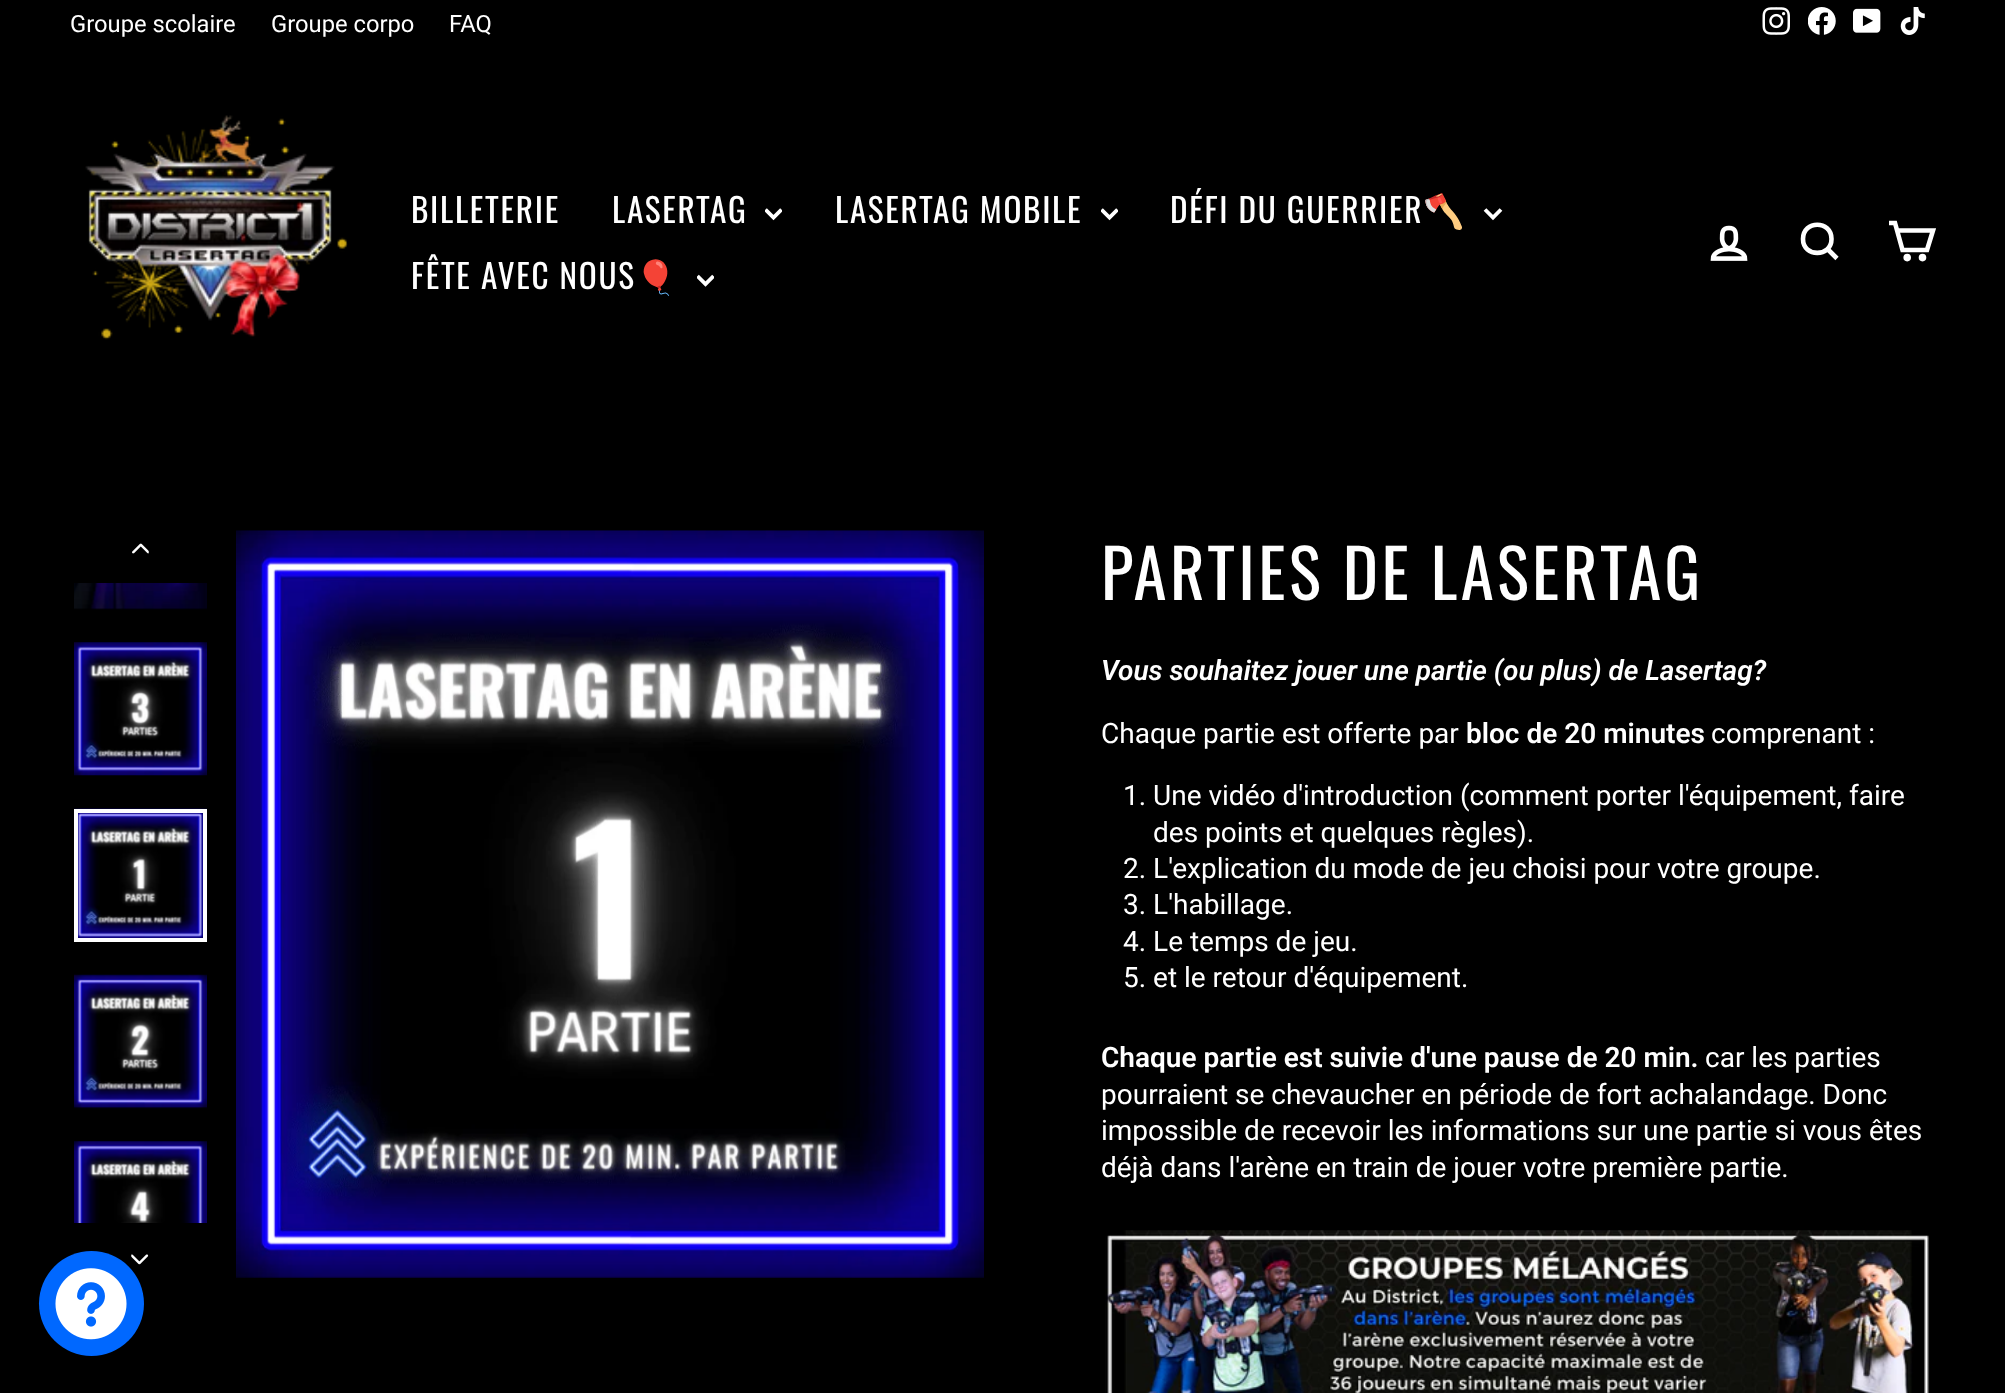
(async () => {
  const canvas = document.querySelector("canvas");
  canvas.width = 2005;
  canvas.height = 1393;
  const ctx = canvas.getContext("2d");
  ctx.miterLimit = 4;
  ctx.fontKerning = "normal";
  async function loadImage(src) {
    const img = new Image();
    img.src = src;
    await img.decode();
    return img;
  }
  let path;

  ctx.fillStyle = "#000000";
  ctx.fillRect(0, 0, 2005, 1393);
  ctx.drawImage(await loadImage("img/1.png"), 1762, 7, 28, 28);
  ctx.drawImage(await loadImage("img/2.png"), 1808, 7, 28, 28);
  ctx.drawImage(await loadImage("img/3.png"), 1853, 8, 28, 25);
  ctx.drawImage(await loadImage("img/4.png"), 1900, 7, 25, 28);
  ctx.drawImage(await loadImage("img/5.png"), 85, 115, 263, 225);
  ctx.save();
  ctx.beginPath();
  ctx.rect(765, 205, 17, 17);
  ctx.clip();
  path = new Path2D("M765.5 209.5L773.5 217.5L781.5 209.5");
  ctx.strokeStyle = "#ffffff";
  ctx.lineWidth = 3.8;
  ctx.stroke(path);
  ctx.restore();
  ctx.save();
  ctx.beginPath();
  ctx.rect(1101, 205, 17, 17);
  ctx.clip();
  path = new Path2D("M1101.5 209.5L1109.5 217.5L1117.5 209.5");
  ctx.strokeStyle = "#ffffff";
  ctx.lineWidth = 3.8;
  ctx.stroke(path);
  ctx.restore();
  path = new Path2D("M1485 209.5L1493 217.5L1501 209.5");
  ctx.strokeStyle = "#ffffff";
  ctx.lineWidth = 3.8;
  ctx.stroke(path);
  ctx.save();
  ctx.beginPath();
  ctx.rect(697, 271, 17, 18);
  ctx.clip();
  path = new Path2D("M697.5 276L705.5 284L713.5 276");
  ctx.stroke(path);
  ctx.restore();
  ctx.drawImage(await loadImage("img/6.png"), 1710, 225, 38, 36);
  path = new Path2D("M1831.5 239C1831.5 257.5 1803 257.5 1803 239C1803 220 1831.5 220 1831.5 239ZM1837 258.5L1827.5 249");
  ctx.lineWidth = 4.6;
  ctx.stroke(path);
  path = new Path2D("M1897 230.5H1933L1927 250H1902.5L1895 223H1889");
  ctx.stroke(path);
  ctx.fillStyle = "#ffffff";
  ctx.beginPath();
  ctx.arc(1907.2, 257.6, 1.5, 0, Math.PI * 2);
  ctx.fill();
  ctx.stroke();
  ctx.beginPath();
  ctx.arc(1922.5, 257.6, 1.5, 0, Math.PI * 2);
  ctx.fill();
  ctx.stroke();
  ctx.drawImage(await loadImage("img/7.png"), 132, 543, 17, 11);
  ctx.drawImage(await loadImage("img/8.png"), 74, 583, 133, 27);
  ctx.drawImage(await loadImage("img/9.png"), 74, 642, 133, 134);
  ctx.drawImage(await loadImage("img/10.png"), 74, 808, 133, 130);
  ctx.lineWidth = 4;
  ctx.strokeRect(76, 811, 129, 129);
  ctx.drawImage(await loadImage("img/11.png"), 74, 974, 133, 135);
  ctx.drawImage(await loadImage("img/12.png"), 74, 1141, 133, 82);
  ctx.drawImage(await loadImage("img/13.png"), 131, 1254, 18, 11);
  ctx.drawImage(await loadImage("img/14.png"), 236, 530, 748, 748);
  ctx.drawImage(await loadImage("img/15.png"), 1105, 1230, 824, 163);
  ctx.fillStyle = "#0068ff";
  ctx.beginPath();
  ctx.arc(91.5, 1303.5, 52.5, 0, Math.PI * 2);
  ctx.fill();
  ctx.drawImage(await loadImage("img/16.png"), 55, 1268, 72, 72);
  ctx.font = "23.75px Roboto";
  ctx.fillStyle = "#ffffff";
  for (const [text, x, y] of [
    ["Groupe scolaire", 70, 32],
    ["Groupe corpo", 271, 32],
    ["FAQ", 449, 32],
  ]) {
    ctx.fillText(text, x, y);
  }
  ctx.letterSpacing = "1.7px";
  ctx.font = "33.25px Oswald";
  for (const [text, x, y] of [
    ["BILLETERIE", 411, 223],
    ["LASERTAG", 612, 223],
    ["LASERTAG MOBILE", 835, 223],
    ["DÉFI DU GUERRIER", 1170, 223],
  ]) {
    ctx.fillText(text, x, y);
  }
  ctx.font = "33.25px Noto Color Emoji";
  ctx.fillText("🪓", 1423, 223);
  ctx.font = "33.25px Oswald";
  ctx.fillText("FÊTE AVEC NOUS", 411, 289);
  ctx.font = "33.25px Noto Color Emoji";
  ctx.fillText("🎈", 635, 289);
  ctx.letterSpacing = "3.4px";
  ctx.font = "67px Oswald";
  ctx.fillText("PARTIES DE LASERTAG", 1101, 600);
  ctx.letterSpacing = "0px";
  ctx.font = "italic 600 28px Roboto";
  ctx.fillText("Vous souhaitez jouer une partie (ou plus) de Lasertag?", 1101, 680);
  ctx.font = "28px Roboto";
  ctx.fillText("Chaque partie est offerte par", 1101, 743);
  ctx.font = "600 28px Roboto";
  ctx.fillText("bloc de 20 minutes", 1466, 743);
  ctx.font = "28px Roboto";
  for (const [text, x, y] of [
    ["comprenant :", 1711, 743],
    ["1. Une vidéo d'introduction (comment porter l'équipement, faire", 1123, 805],
    ["des points et quelques règles).", 1153, 842],
    ["2. L'explication du mode de jeu choisi pour votre groupe.", 1123, 878],
    ["3. L'habillage.", 1123, 914],
    ["4. Le temps de jeu.", 1123, 951],
    ["5. et le retour d'équipement.", 1123, 987],
  ]) {
    ctx.fillText(text, x, y);
  }
  ctx.font = "600 28px Roboto";
  ctx.fillText("Chaque partie est suivie d'une pause de 20 min.", 1101, 1067);
  ctx.font = "28px Roboto";
  for (const [text, x, y] of [
    ["car les parties", 1705, 1067],
    ["pourraient se chevaucher en période de fort achalandage. Donc", 1101, 1104],
    ["impossible de recevoir les informations sur une partie si vous êtes", 1101, 1140],
    ["déjà dans l'arène en train de jouer votre première partie.", 1101, 1177],
  ]) {
    ctx.fillText(text, x, y);
  }
})();
